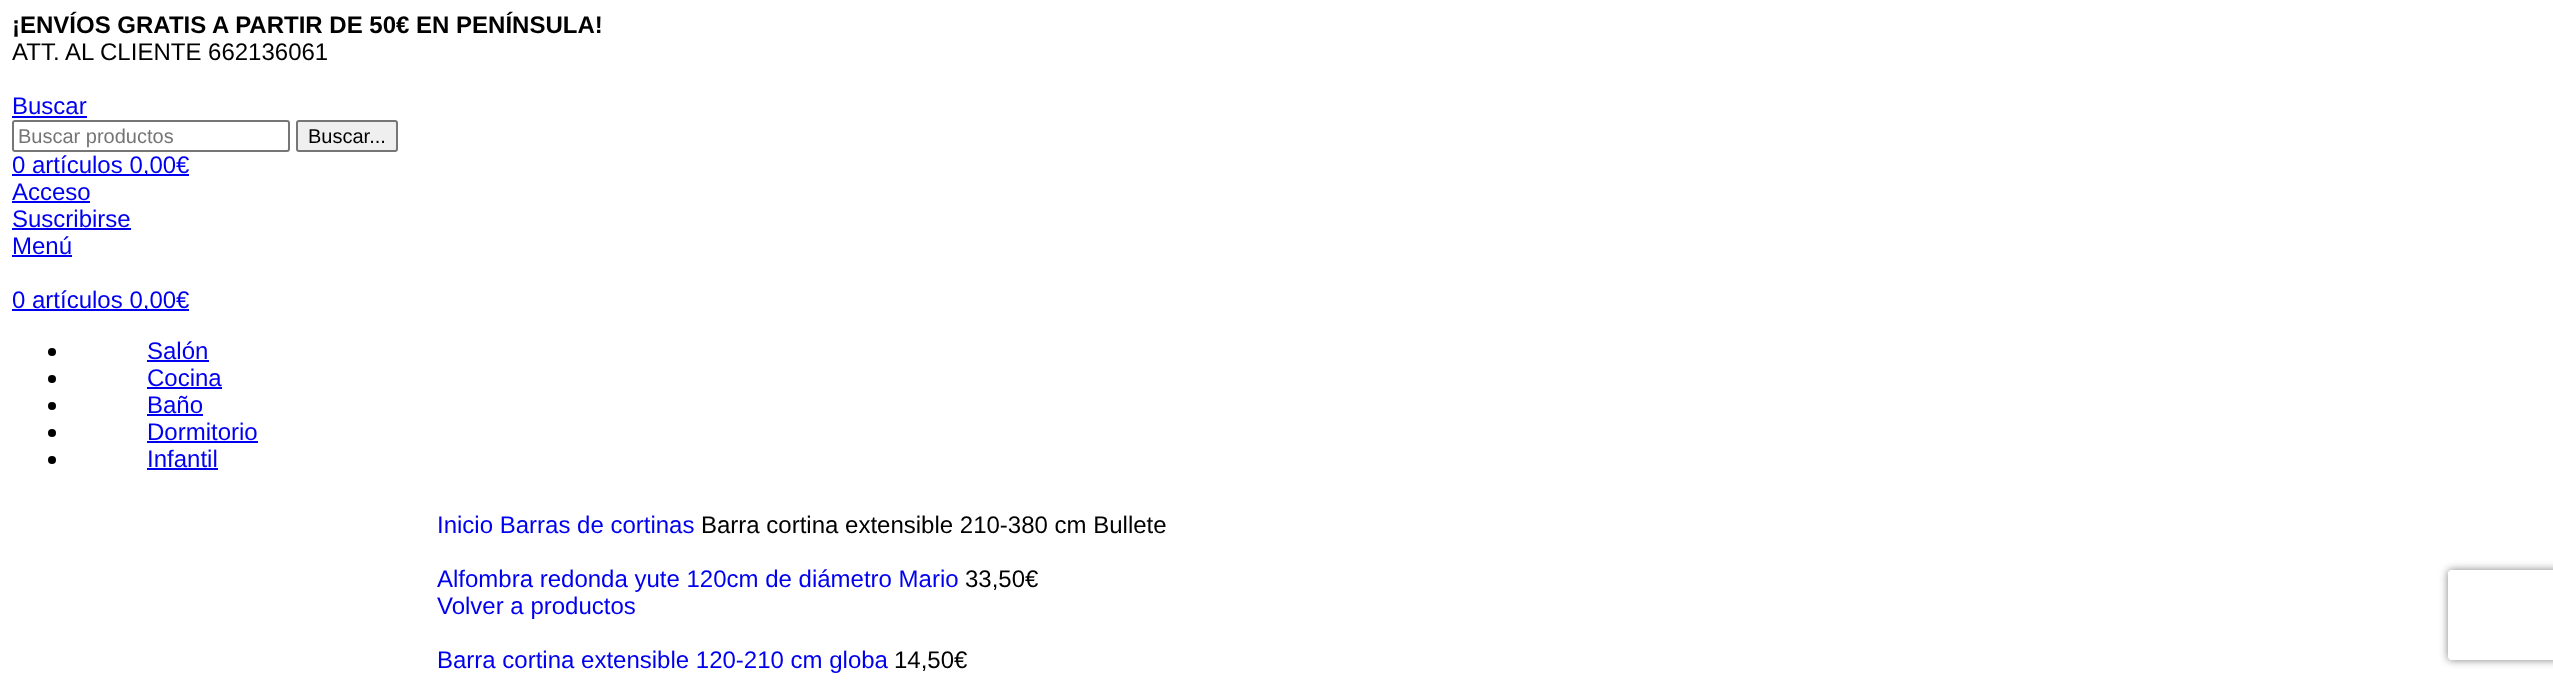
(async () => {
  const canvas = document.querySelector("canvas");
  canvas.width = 2553;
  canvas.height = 681;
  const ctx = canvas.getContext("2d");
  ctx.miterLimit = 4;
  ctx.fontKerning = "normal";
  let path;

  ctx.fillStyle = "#ffffff";
  ctx.fillRect(0, 0, 2553, 681);
  ctx.fillStyle = "#0000ee";
  ctx.fillRect(12, 116, 75, 2);
  ctx.beginPath();
  ctx.roundRect(13, 121, 276, 30, 2);
  ctx.strokeStyle = "#767676";
  ctx.lineWidth = 2;
  ctx.stroke();
  ctx.fillStyle = "#efefef";
  ctx.beginPath();
  ctx.roundRect(297, 121, 100, 30, 2);
  ctx.fill();
  ctx.stroke();
  for (const [x, y, w, h, color] of [
    [12, 174, 177, 2, "#0000ee"],
    [12, 201, 78, 2, "#0000ee"],
    [12, 228, 119, 2, "#0000ee"],
    [12, 255, 60, 2, "#0000ee"],
    [12, 309, 177, 2, "#0000ee"],
  ]) {
    ctx.fillStyle = color;
    ctx.fillRect(x, y, w, h);
  }
  ctx.fillStyle = "#000000";
  ctx.beginPath();
  ctx.arc(52, 352, 4, 0, Math.PI * 2);
  ctx.fill();
  ctx.fillStyle = "#0000ee";
  ctx.fillRect(147, 360, 62, 2);
  ctx.fillStyle = "#000000";
  ctx.beginPath();
  ctx.arc(52, 379, 4, 0, Math.PI * 2);
  ctx.fill();
  ctx.fillStyle = "#0000ee";
  ctx.fillRect(147, 387, 75, 2);
  ctx.fillStyle = "#000000";
  ctx.beginPath();
  ctx.arc(52, 406, 4, 0, Math.PI * 2);
  ctx.fill();
  ctx.fillStyle = "#0000ee";
  ctx.fillRect(147, 414, 56, 2);
  ctx.fillStyle = "#000000";
  ctx.beginPath();
  ctx.arc(52, 433, 4, 0, Math.PI * 2);
  ctx.fill();
  ctx.fillStyle = "#0000ee";
  ctx.fillRect(147, 441, 111, 2);
  ctx.fillStyle = "#000000";
  ctx.beginPath();
  ctx.arc(52, 460, 4, 0, Math.PI * 2);
  ctx.fill();
  ctx.fillStyle = "#0000ee";
  ctx.fillRect(147, 468, 71, 2);
  ctx.save();
  path = new Path2D("M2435 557H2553V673H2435ZM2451 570H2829C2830.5 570 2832 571.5 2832 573V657C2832 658.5 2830.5 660 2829 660H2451C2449.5 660 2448 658.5 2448 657V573C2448 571.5 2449.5 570 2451 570Z");
  ctx.clip(path, "evenodd");
  ctx.fillStyle = "#808080";
  ctx.filter = "blur(4px)";
  ctx.beginPath();
  ctx.roundRect(2448, 570, 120, 90, 3);
  ctx.fill();
  ctx.filter = "none";
  ctx.restore();
  ctx.font = "bold 24px Liberation Sans";
  ctx.fillStyle = "#000000";
  ctx.fillText("¡ENVÍOS GRATIS A PARTIR DE 50€ EN PENÍNSULA!", 12, 33);
  ctx.font = "24px Liberation Sans";
  ctx.fillText("ATT. AL CLIENTE 662136061", 12, 60);
  ctx.fillStyle = "#0000ee";
  ctx.fillText("Buscar", 12, 114);
  ctx.font = "20px Liberation Sans";
  ctx.fillStyle = "#757575";
  ctx.fillText("Buscar productos", 18, 143);
  ctx.fillStyle = "#000000";
  ctx.fillText("Buscar...", 308, 143);
  ctx.font = "24px Liberation Sans";
  ctx.fillStyle = "#0000ee";
  for (const [text, x, y] of [
    ["0 artículos 0,00€", 12, 173],
    ["Acceso", 12, 200],
    ["Suscribirse", 12, 227],
    ["Menú", 12, 254],
    ["0 artículos 0,00€", 12, 308],
    ["Salón", 147, 359],
    ["Cocina", 147, 386],
    ["Baño", 147, 413],
    ["Dormitorio", 147, 440],
    ["Infantil", 147, 467],
    ["Inicio Barras de cortinas", 437, 533],
  ]) {
    ctx.fillText(text, x, y);
  }
  ctx.fillStyle = "#000000";
  ctx.fillText("Barra cortina extensible 210-380 cm Bullete", 701, 533);
  ctx.fillStyle = "#0000ee";
  ctx.fillText("Alfombra redonda yute 120cm de diámetro Mario", 437, 587);
  ctx.fillStyle = "#000000";
  ctx.fillText("33,50€", 965, 587);
  ctx.fillStyle = "#0000ee";
  ctx.fillText("Volver a productos", 437, 614);
  ctx.fillText("Barra cortina extensible 120-210 cm globa", 437, 668);
  ctx.fillStyle = "#000000";
  ctx.fillText("14,50€", 894, 668);
})();
